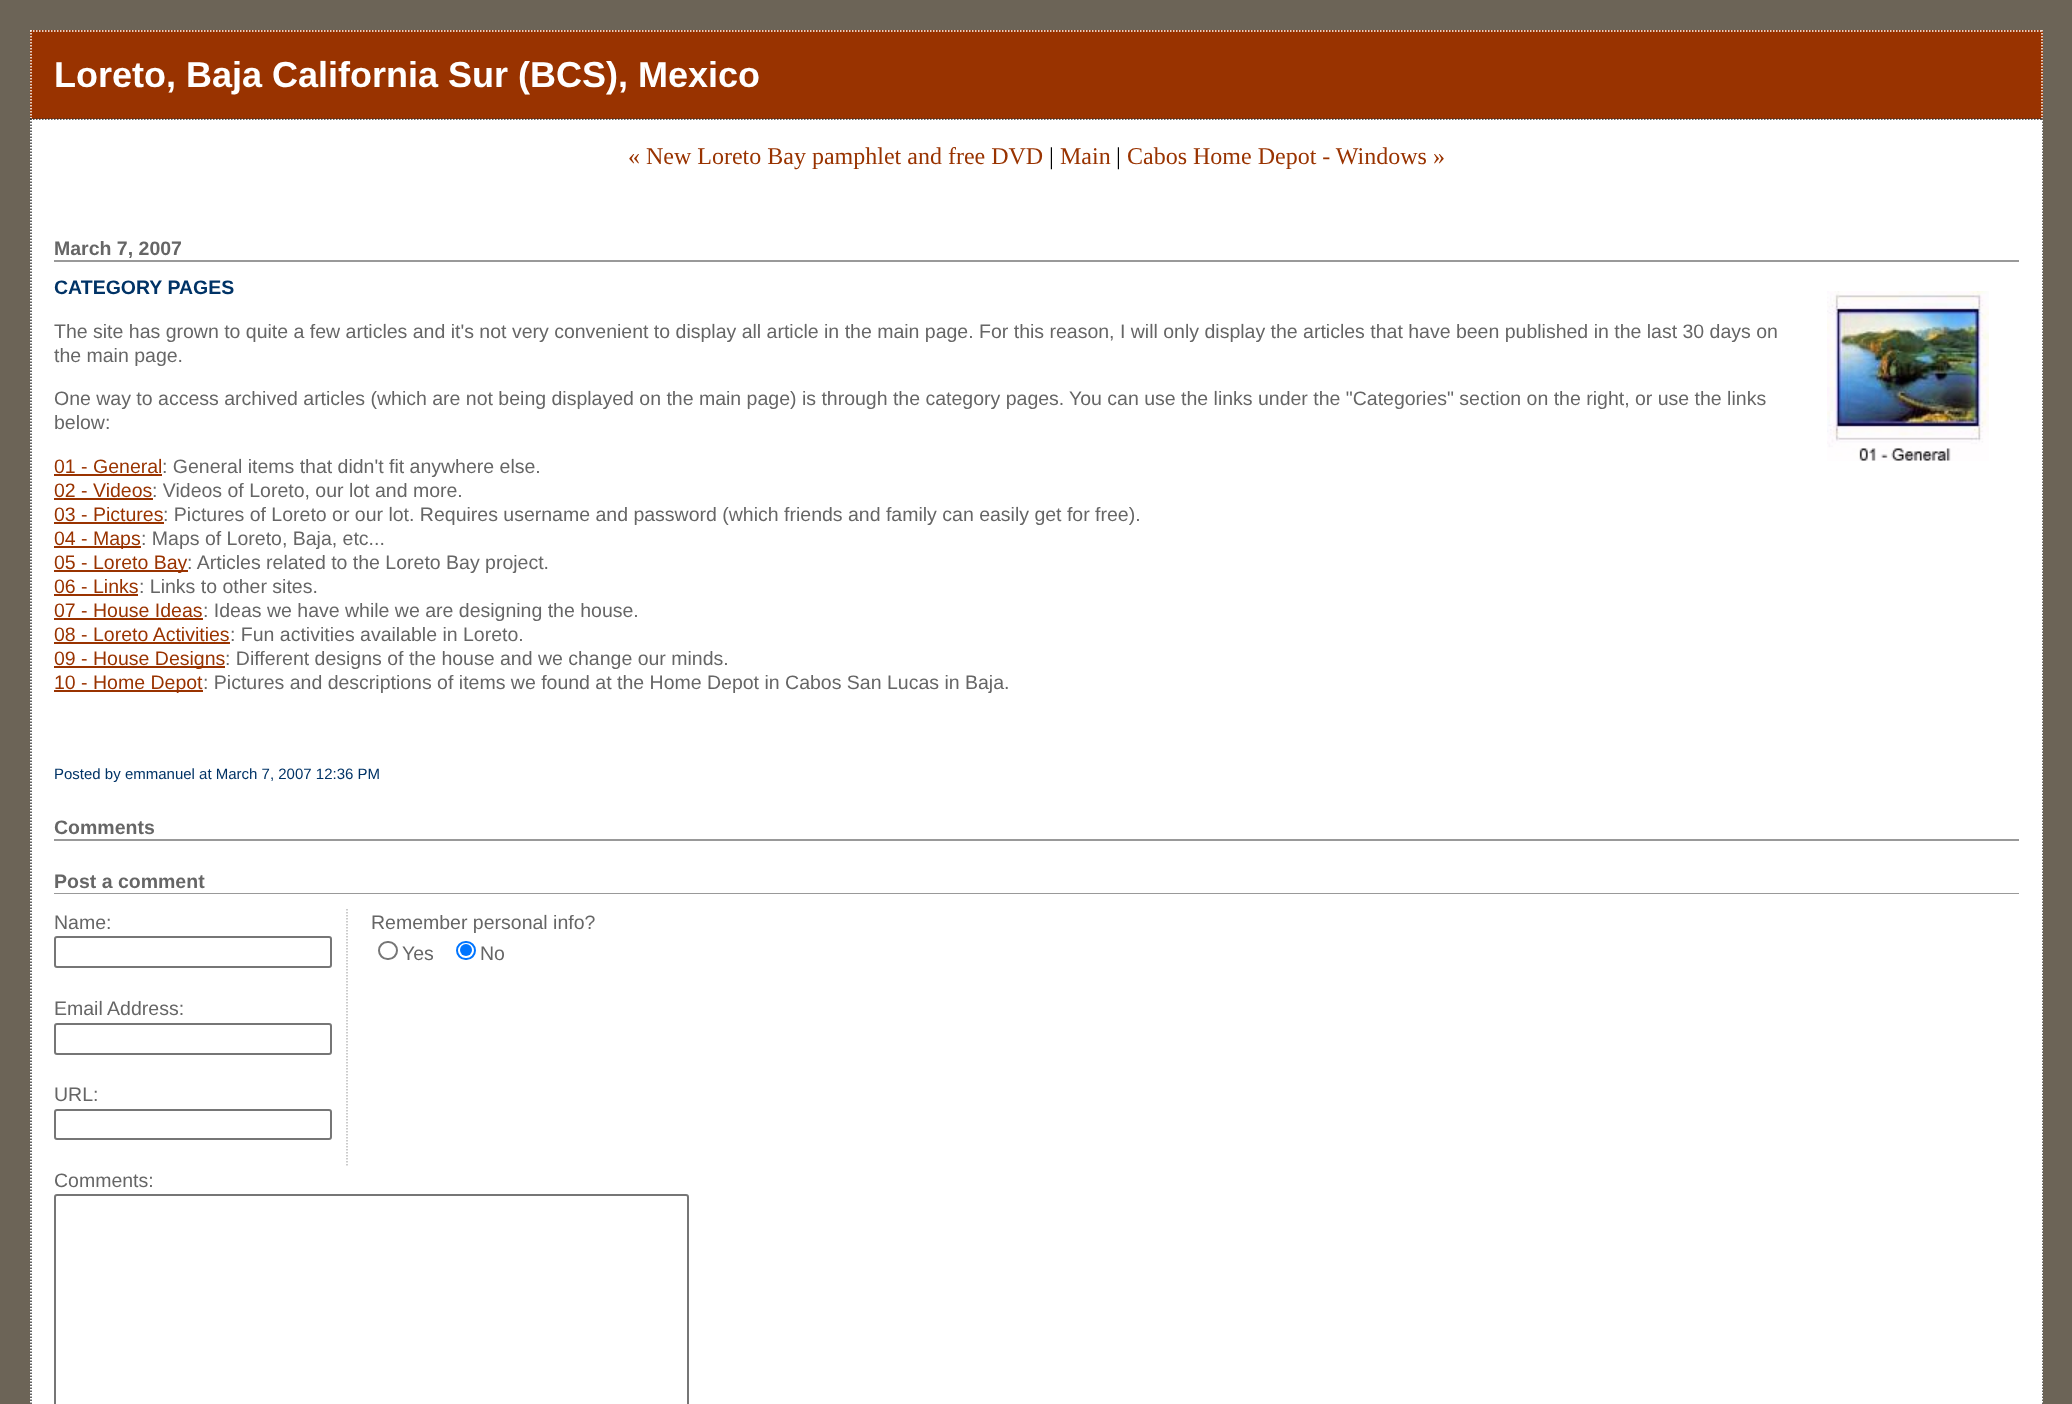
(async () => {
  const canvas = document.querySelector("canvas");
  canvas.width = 2072;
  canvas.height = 1404;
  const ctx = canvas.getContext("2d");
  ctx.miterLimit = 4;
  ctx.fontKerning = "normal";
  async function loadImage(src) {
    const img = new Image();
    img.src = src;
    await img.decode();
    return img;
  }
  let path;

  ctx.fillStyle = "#6c6457";
  ctx.fillRect(0, 0, 2072, 1404);
  ctx.fillStyle = "#993300";
  ctx.fillRect(30, 30, 2013, 89);
  path = new Path2D("M30 31H2043");
  ctx.strokeStyle = "#ffffff";
  ctx.lineWidth = 1.5;
  ctx.setLineDash([1.5, 1.5]);
  ctx.stroke(path);
  path = new Path2D("M2042 30V118.5");
  ctx.stroke(path);
  path = new Path2D("M31 30V118.5");
  ctx.stroke(path);
  ctx.fillStyle = "#ffffff";
  ctx.fillRect(30, 119, 2013, 1285);
  path = new Path2D("M30 119H2043");
  ctx.strokeStyle = "#333333";
  ctx.stroke(path);
  path = new Path2D("M2042 118.5V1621.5");
  ctx.stroke(path);
  path = new Path2D("M31 118.5V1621.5");
  ctx.stroke(path);
  ctx.fillRect(2041, 121, 1, 1283);
  ctx.fillStyle = "#999999";
  ctx.fillRect(54, 260, 1965, 2);
  ctx.drawImage(await loadImage("img/1.png"), 1827, 291, 162, 170);
  for (const [x, y, w, h, color] of [
    [54, 474, 108, 2, "#993300"],
    [54, 498, 99, 2, "#993300"],
    [54, 522, 110, 2, "#993300"],
    [54, 546, 87, 2, "#993300"],
    [54, 570, 134, 2, "#993300"],
    [54, 594, 84, 2, "#993300"],
    [54, 618, 149, 2, "#993300"],
    [54, 642, 176, 2, "#993300"],
    [54, 666, 171, 2, "#993300"],
    [54, 690, 149, 2, "#993300"],
    [54, 839, 1965, 2, "#999999"],
    [54, 893, 1965, 1, "#999999"],
  ]) {
    ctx.fillStyle = color;
    ctx.fillRect(x, y, w, h);
  }
  path = new Path2D("M347 909V1167");
  ctx.strokeStyle = "#bbbbbb";
  ctx.stroke(path);
  ctx.beginPath();
  ctx.roundRect(55, 937, 276, 30, 2);
  ctx.strokeStyle = "#767676";
  ctx.lineWidth = 2;
  ctx.setLineDash([]);
  ctx.stroke();
  ctx.beginPath();
  ctx.roundRect(55, 1024, 276, 30, 2);
  ctx.stroke();
  ctx.beginPath();
  ctx.roundRect(55, 1110, 276, 29, 2);
  ctx.stroke();
  ctx.beginPath();
  ctx.roundRect(379, 942, 18, 17, 8.5);
  ctx.stroke();
  ctx.beginPath();
  ctx.roundRect(457, 942, 18, 17, 8.5);
  ctx.strokeStyle = "#0075ff";
  ctx.stroke();
  ctx.fillStyle = "#0075ff";
  ctx.beginPath();
  ctx.arc(466, 950, 6, 0, Math.PI * 2);
  ctx.fill();
  ctx.beginPath();
  ctx.roundRect(55, 1195, 633, 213, 2);
  ctx.strokeStyle = "#767676";
  ctx.stroke();
  ctx.font = "bold 36px Liberation Sans";
  ctx.fillStyle = "#ffffff";
  ctx.fillText("Loreto, Baja California Sur (BCS), Mexico", 54, 87);
  ctx.font = "24px Liberation Serif";
  ctx.fillStyle = "#993300";
  ctx.fillText("« New Loreto Bay pamphlet and free DVD", 628, 164);
  ctx.fillStyle = "#000000";
  ctx.fillText("|", 1049, 164);
  ctx.fillStyle = "#993300";
  ctx.fillText("Main", 1060, 164);
  ctx.fillStyle = "#000000";
  ctx.fillText("|", 1116, 164);
  ctx.fillStyle = "#993300";
  ctx.fillText("Cabos Home Depot - Windows »", 1127, 164);
  ctx.font = "bold 19.5px Liberation Sans";
  ctx.fillStyle = "#666666";
  ctx.fillText("March 7, 2007", 54, 255);
  ctx.fillStyle = "#003366";
  ctx.fillText("CATEGORY PAGES", 54, 294);
  ctx.font = "19.5px Liberation Sans";
  ctx.fillStyle = "#666666";
  for (const [text, x, y] of [
    ["The site has grown to quite a few articles and it's not very convenient to display all article in the main page. For this reason, I will only display the articles that have been published in the last 30 days on", 54, 338],
    ["the main page.", 54, 362],
    ["One way to access archived articles (which are not being displayed on the main page) is through the category pages.", 54, 405],
    ["You can use the links under the \"Categories\" section on the right, or use the links", 1069, 405],
    ["below:", 54, 429],
  ]) {
    ctx.fillText(text, x, y);
  }
  ctx.fillStyle = "#993300";
  ctx.fillText("01 - General", 54, 473);
  ctx.fillStyle = "#666666";
  ctx.fillText(": General items that didn't fit anywhere else.", 162, 473);
  ctx.fillStyle = "#993300";
  ctx.fillText("02 - Videos", 54, 497);
  ctx.fillStyle = "#666666";
  ctx.fillText(": Videos of Loreto, our lot and more.", 152, 497);
  ctx.fillStyle = "#993300";
  ctx.fillText("03 - Pictures", 54, 521);
  ctx.fillStyle = "#666666";
  ctx.fillText(": Pictures of Loreto or our lot. Requires username and password (which friends and family can easily get for free).", 163, 521);
  ctx.fillStyle = "#993300";
  ctx.fillText("04 - Maps", 54, 545);
  ctx.fillStyle = "#666666";
  ctx.fillText(": Maps of Loreto, Baja, etc...", 141, 545);
  ctx.fillStyle = "#993300";
  ctx.fillText("05 - Loreto Bay", 54, 569);
  ctx.fillStyle = "#666666";
  ctx.fillText(": Articles related to the Loreto Bay project.", 187, 569);
  ctx.fillStyle = "#993300";
  ctx.fillText("06 - Links", 54, 593);
  ctx.fillStyle = "#666666";
  ctx.fillText(": Links to other sites.", 139, 593);
  ctx.fillStyle = "#993300";
  ctx.fillText("07 - House Ideas", 54, 617);
  ctx.fillStyle = "#666666";
  ctx.fillText(": Ideas we have while we are designing the house.", 203, 617);
  ctx.fillStyle = "#993300";
  ctx.fillText("08 - Loreto Activities", 54, 641);
  ctx.fillStyle = "#666666";
  ctx.fillText(": Fun activities available in Loreto.", 230, 641);
  ctx.fillStyle = "#993300";
  ctx.fillText("09 - House Designs", 54, 665);
  ctx.fillStyle = "#666666";
  ctx.fillText(": Different designs of the house and we change our minds.", 225, 665);
  ctx.fillStyle = "#993300";
  ctx.fillText("10 - Home Depot", 54, 689);
  ctx.fillStyle = "#666666";
  ctx.fillText(": Pictures and descriptions of items we found at the Home Depot in Cabos San Lucas in Baja.", 203, 689);
  ctx.font = "15px Liberation Sans";
  ctx.fillStyle = "#003366";
  ctx.fillText("Posted by emmanuel at March 7, 2007 12:36 PM", 54, 779);
  ctx.font = "bold 19.5px Liberation Sans";
  ctx.fillStyle = "#666666";
  ctx.fillText("Comments", 54, 834);
  ctx.fillText("Post a comment", 54, 888);
  ctx.font = "19.5px Liberation Sans";
  for (const [text, x, y] of [
    ["Name:", 54, 929],
    ["Email Address:", 54, 1015],
    ["URL:", 54, 1101],
    ["Remember personal info?", 371, 929],
    ["Yes", 402, 960],
    ["No", 480, 960],
    ["Comments:", 54, 1187],
  ]) {
    ctx.fillText(text, x, y);
  }
})();
